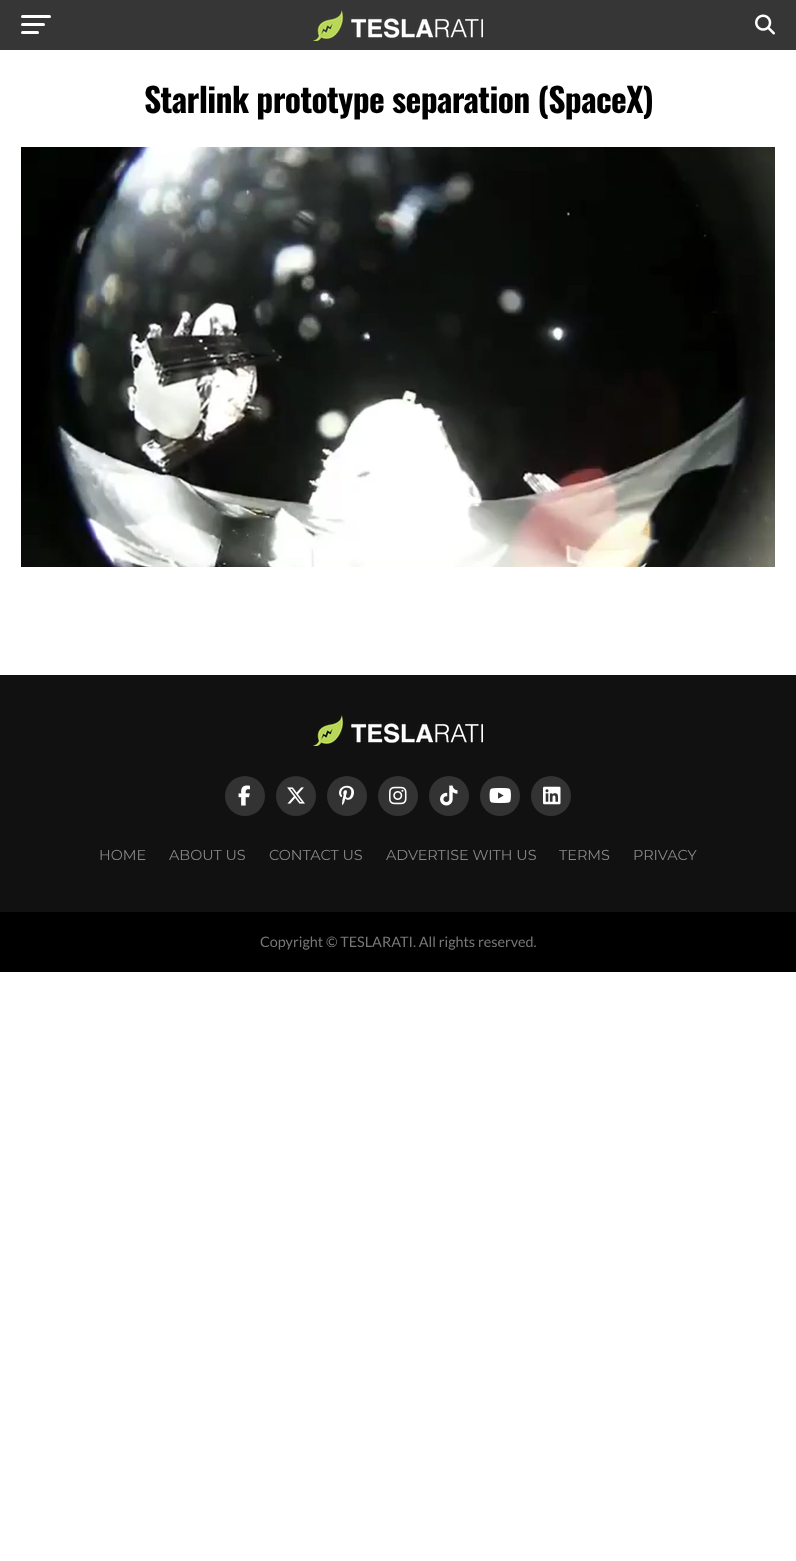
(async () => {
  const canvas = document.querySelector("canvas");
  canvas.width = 796;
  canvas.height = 1561;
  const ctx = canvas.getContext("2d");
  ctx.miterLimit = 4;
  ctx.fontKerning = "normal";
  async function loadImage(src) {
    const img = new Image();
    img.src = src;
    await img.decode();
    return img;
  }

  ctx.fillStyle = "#ffffff";
  ctx.fillRect(0, 0, 796, 1561);
  ctx.fillStyle = "#363636";
  ctx.fillRect(0, 0, 796, 50);
  ctx.fillStyle = "#ffffff";
  ctx.beginPath();
  ctx.roundRect(21, 15, 30, 3, 1.5);
  ctx.fill();
  ctx.beginPath();
  ctx.roundRect(21, 23, 24, 3, 1.5);
  ctx.fill();
  ctx.beginPath();
  ctx.roundRect(21, 31, 18, 3, 1.5);
  ctx.fill();
  ctx.drawImage(await loadImage("img/1.png"), 313, 10, 170, 31);
  ctx.drawImage(await loadImage("img/2.png"), 755, 14, 20, 21);
  ctx.drawImage(await loadImage("img/3.png"), 21, 147, 754, 420);
  ctx.fillStyle = "#111111";
  ctx.fillRect(0, 675, 796, 237);
  ctx.drawImage(await loadImage("img/4.png"), 313, 715, 170, 31);
  ctx.fillStyle = "#333333";
  ctx.beginPath();
  ctx.arc(245, 796, 20, 0, Math.PI * 2);
  ctx.fill();
  ctx.drawImage(await loadImage("img/5.png"), 238, 785, 12, 21);
  ctx.beginPath();
  ctx.arc(296, 796, 20, 0, Math.PI * 2);
  ctx.fill();
  ctx.drawImage(await loadImage("img/6.png"), 287, 787, 18, 17);
  ctx.beginPath();
  ctx.arc(347, 796, 20, 0, Math.PI * 2);
  ctx.fill();
  ctx.drawImage(await loadImage("img/7.png"), 339, 785, 15, 21);
  ctx.beginPath();
  ctx.arc(398, 796, 20, 0, Math.PI * 2);
  ctx.fill();
  ctx.drawImage(await loadImage("img/8.png"), 389, 786, 18, 19);
  ctx.beginPath();
  ctx.arc(449, 796, 20, 0, Math.PI * 2);
  ctx.fill();
  ctx.drawImage(await loadImage("img/9.png"), 440, 785, 18, 21);
  ctx.beginPath();
  ctx.arc(500, 796, 20, 0, Math.PI * 2);
  ctx.fill();
  ctx.drawImage(await loadImage("img/10.png"), 489, 788, 22, 15);
  ctx.beginPath();
  ctx.arc(551, 796, 20, 0, Math.PI * 2);
  ctx.fill();
  ctx.drawImage(await loadImage("img/11.png"), 543, 786, 18, 19);
  ctx.fillStyle = "#000000";
  ctx.fillRect(0, 912, 796, 60);
  ctx.letterSpacing = "-0.65px";
  ctx.font = "bold 33.6px Oswald";
  ctx.fillText("Starlink prototype separation (SpaceX)", 144, 113);
  ctx.letterSpacing = "0px";
  ctx.font = "14.4px Montserrat";
  ctx.fillStyle = "#888888";
  for (const [text, x, y] of [
    ["HOME", 99, 860],
    ["ABOUT US", 169, 860],
    ["CONTACT US", 269, 860],
    ["ADVERTISE WITH US", 386, 860],
    ["TERMS", 559, 860],
    ["PRIVACY", 633, 860],
  ]) {
    ctx.fillText(text, x, y);
  }
  ctx.font = "14.4px Lato";
  ctx.fillStyle = "#777777";
  ctx.fillText("Copyright © TESLARATI. All rights reserved.", 260, 947);
})();
